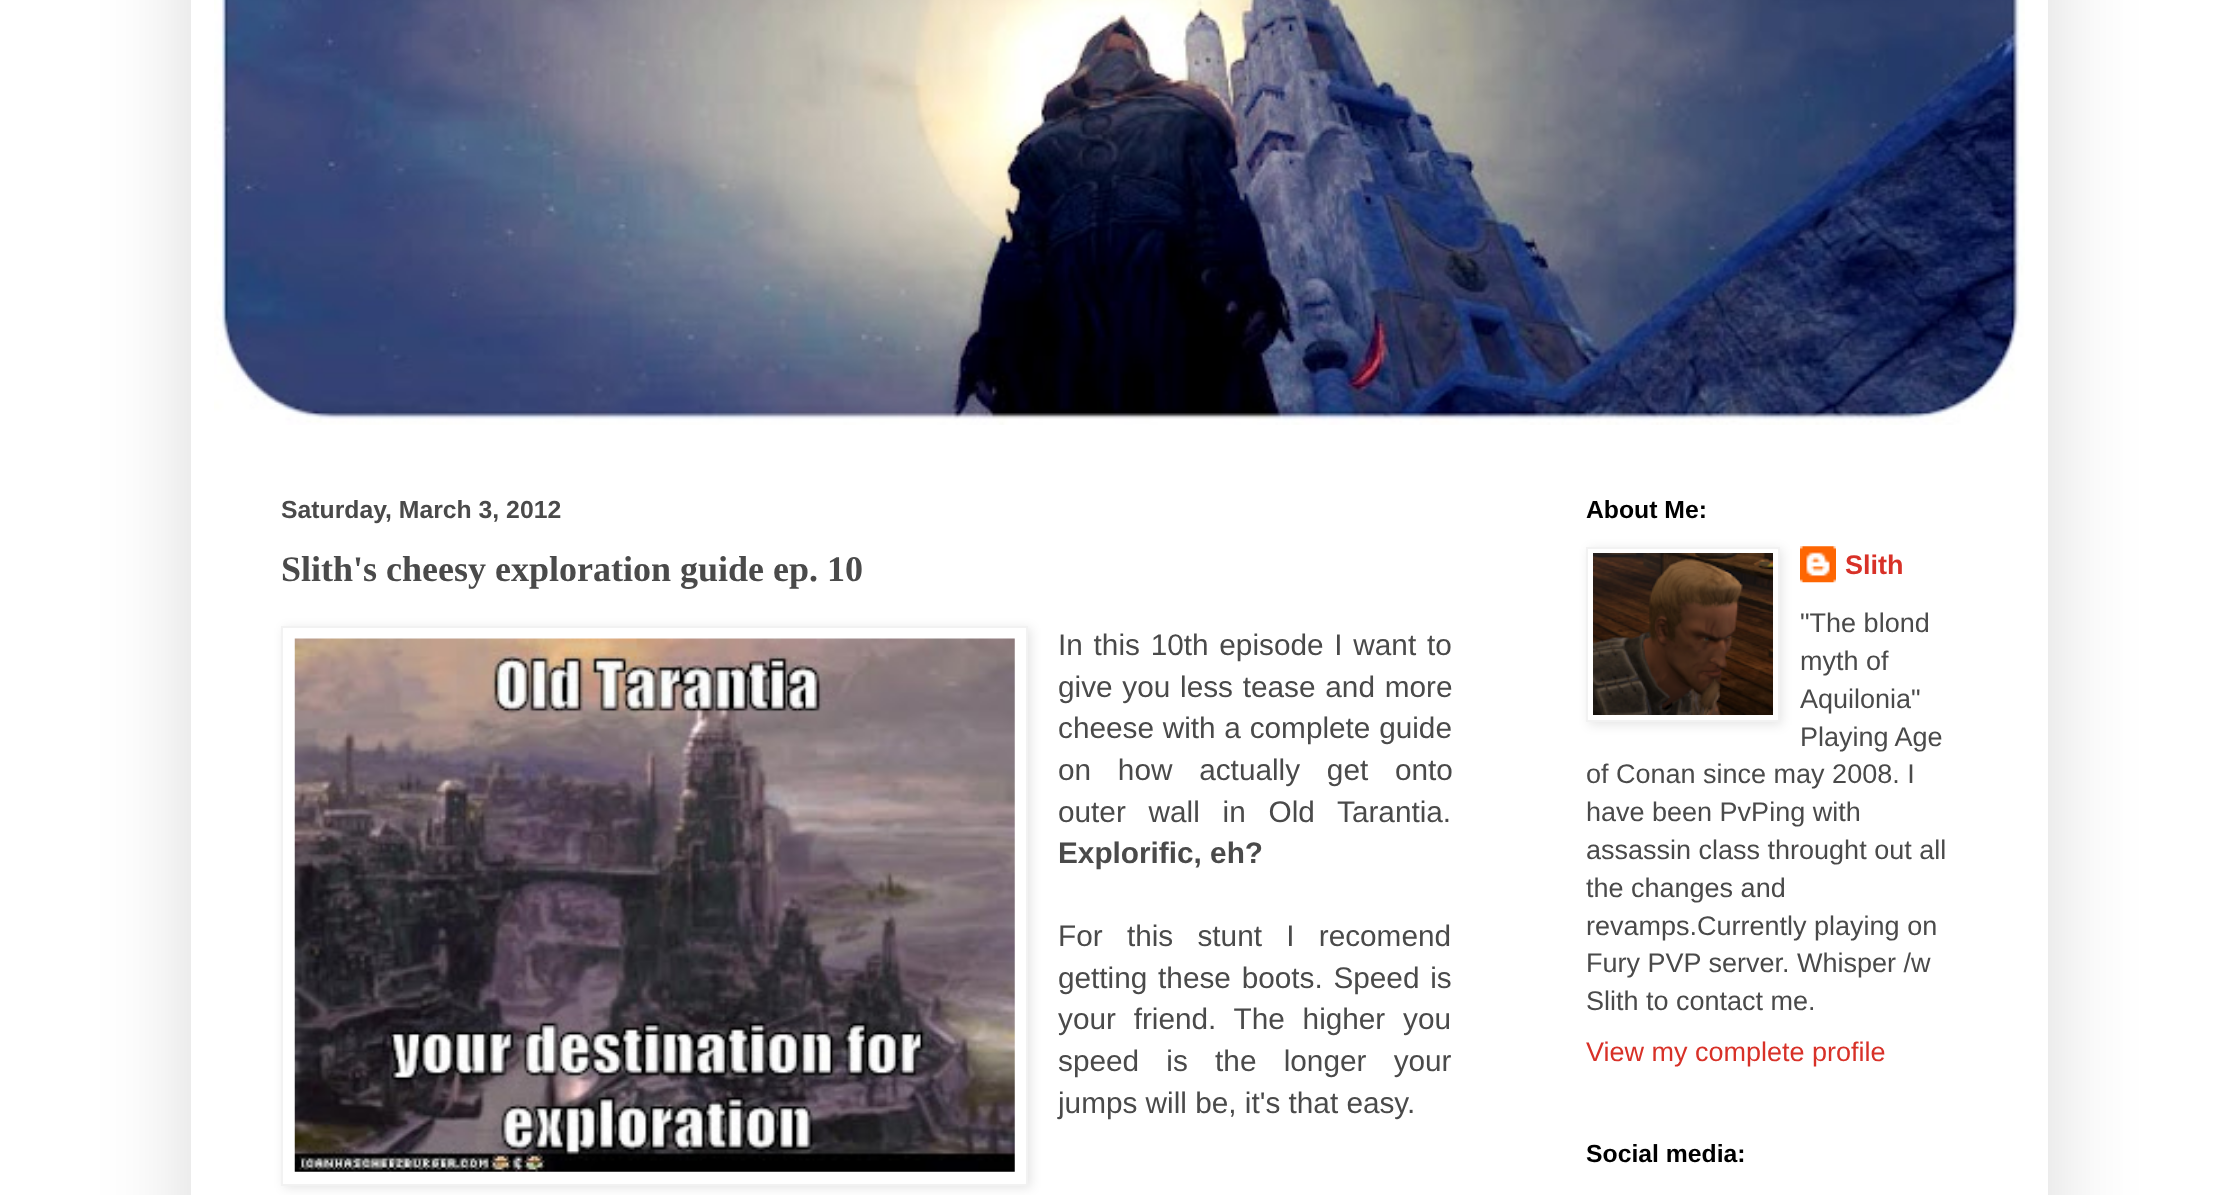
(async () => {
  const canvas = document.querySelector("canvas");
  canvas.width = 2238;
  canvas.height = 1195;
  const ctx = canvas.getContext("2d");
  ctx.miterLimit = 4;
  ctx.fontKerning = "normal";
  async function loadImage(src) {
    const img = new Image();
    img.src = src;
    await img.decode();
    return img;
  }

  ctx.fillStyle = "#ffffff";
  ctx.fillRect(0, 0, 2238, 1195);
  ctx.fillStyle = "rgba(0, 0, 0, 0.15)";
  ctx.filter = "blur(45px)";
  ctx.beginPath();
  ctx.rect(191, -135, 1857, 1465);
  ctx.fill();
  ctx.filter = "none";
  ctx.fillStyle = "#ffffff";
  ctx.fillRect(191, 0, 1857, 1195);
  ctx.drawImage(await loadImage("img/1.png"), 214, 0, 1811, 425);
  ctx.fillStyle = "rgba(0, 0, 0, 0.1)";
  ctx.filter = "blur(5.5px)";
  ctx.beginPath();
  ctx.rect(284, 628, 747, 560);
  ctx.fill();
  ctx.filter = "none";
  ctx.fillStyle = "#ffffff";
  ctx.beginPath();
  ctx.rect(282, 627, 745, 558);
  ctx.fill();
  ctx.strokeStyle = "#f2f2f2";
  ctx.lineWidth = 2;
  ctx.stroke();
  ctx.drawImage(await loadImage("img/2.png"), 294, 638, 721, 534);
  ctx.fillStyle = "rgba(0, 0, 0, 0.1)";
  ctx.filter = "blur(5.5px)";
  ctx.beginPath();
  ctx.rect(1589, 549, 193, 176);
  ctx.fill();
  ctx.filter = "none";
  ctx.fillStyle = "#ffffff";
  ctx.beginPath();
  ctx.rect(1587, 548, 192, 173);
  ctx.fill();
  ctx.stroke();
  ctx.drawImage(await loadImage("img/3.png"), 1593, 553, 180, 162);
  ctx.drawImage(await loadImage("img/4.png"), 1800, 546, 36, 37);
  ctx.font = "bold 24.75px Liberation Sans";
  ctx.fillStyle = "#4a4a4a";
  ctx.fillText("Saturday, March 3, 2012", 281, 518);
  ctx.font = "bold 36px Liberation Serif";
  ctx.fillText("Slith's cheesy exploration guide ep. 10", 281, 581);
  ctx.wordSpacing = "2.5px";
  ctx.font = "29.75px Liberation Sans";
  ctx.fillText("In this 10th episode I want to", 1058, 655);
  ctx.wordSpacing = "1.5px";
  ctx.fillText("give you less tease and more", 1058, 697);
  ctx.wordSpacing = "0.5px";
  ctx.fillText("cheese with a complete guide", 1058, 738);
  ctx.wordSpacing = "18.5px";
  ctx.fillText("on how actually get onto", 1058, 780);
  ctx.wordSpacing = "14.5px";
  ctx.fillText("outer wall in Old Tarantia.", 1058, 822);
  ctx.wordSpacing = "0px";
  ctx.font = "bold 29.75px Liberation Sans";
  ctx.fillText("Explorific, eh?", 1058, 863);
  ctx.wordSpacing = "16px";
  ctx.font = "29.75px Liberation Sans";
  ctx.fillText("For this stunt I recomend", 1058, 946);
  ctx.wordSpacing = "2.5px";
  ctx.fillText("getting these boots. Speed is", 1058, 988);
  ctx.wordSpacing = "9.5px";
  ctx.fillText("your friend. The higher you", 1058, 1029);
  ctx.wordSpacing = "19px";
  ctx.fillText("speed is the longer your", 1058, 1071);
  ctx.wordSpacing = "0px";
  ctx.fillText("jumps will be, it's that easy.", 1058, 1113);
  ctx.font = "bold 24.75px Liberation Sans";
  ctx.fillStyle = "#000000";
  ctx.fillText("About Me:", 1586, 518);
  ctx.font = "bold 27px Liberation Sans";
  ctx.fillStyle = "#d83128";
  ctx.fillText("Slith", 1845, 574);
  ctx.font = "27px Liberation Sans";
  ctx.fillStyle = "#4a4a4a";
  for (const [text, x, y] of [
    ["\"The blond", 1800, 632],
    ["myth of", 1800, 670],
    ["Aquilonia\"", 1800, 708],
    ["Playing Age", 1800, 746],
    ["of Conan since may 2008. I", 1586, 783],
    ["have been PvPing with", 1586, 821],
    ["assassin class throught out all", 1586, 859],
    ["the changes and", 1586, 897],
    ["revamps.Currently playing on", 1586, 935],
    ["Fury PVP server. Whisper /w", 1586, 972],
    ["Slith to contact me.", 1586, 1010],
  ]) {
    ctx.fillText(text, x, y);
  }
  ctx.fillStyle = "#d83128";
  ctx.fillText("View my complete profile", 1586, 1061);
  ctx.font = "bold 24.75px Liberation Sans";
  ctx.fillStyle = "#000000";
  ctx.fillText("Social media:", 1586, 1162);
})();
